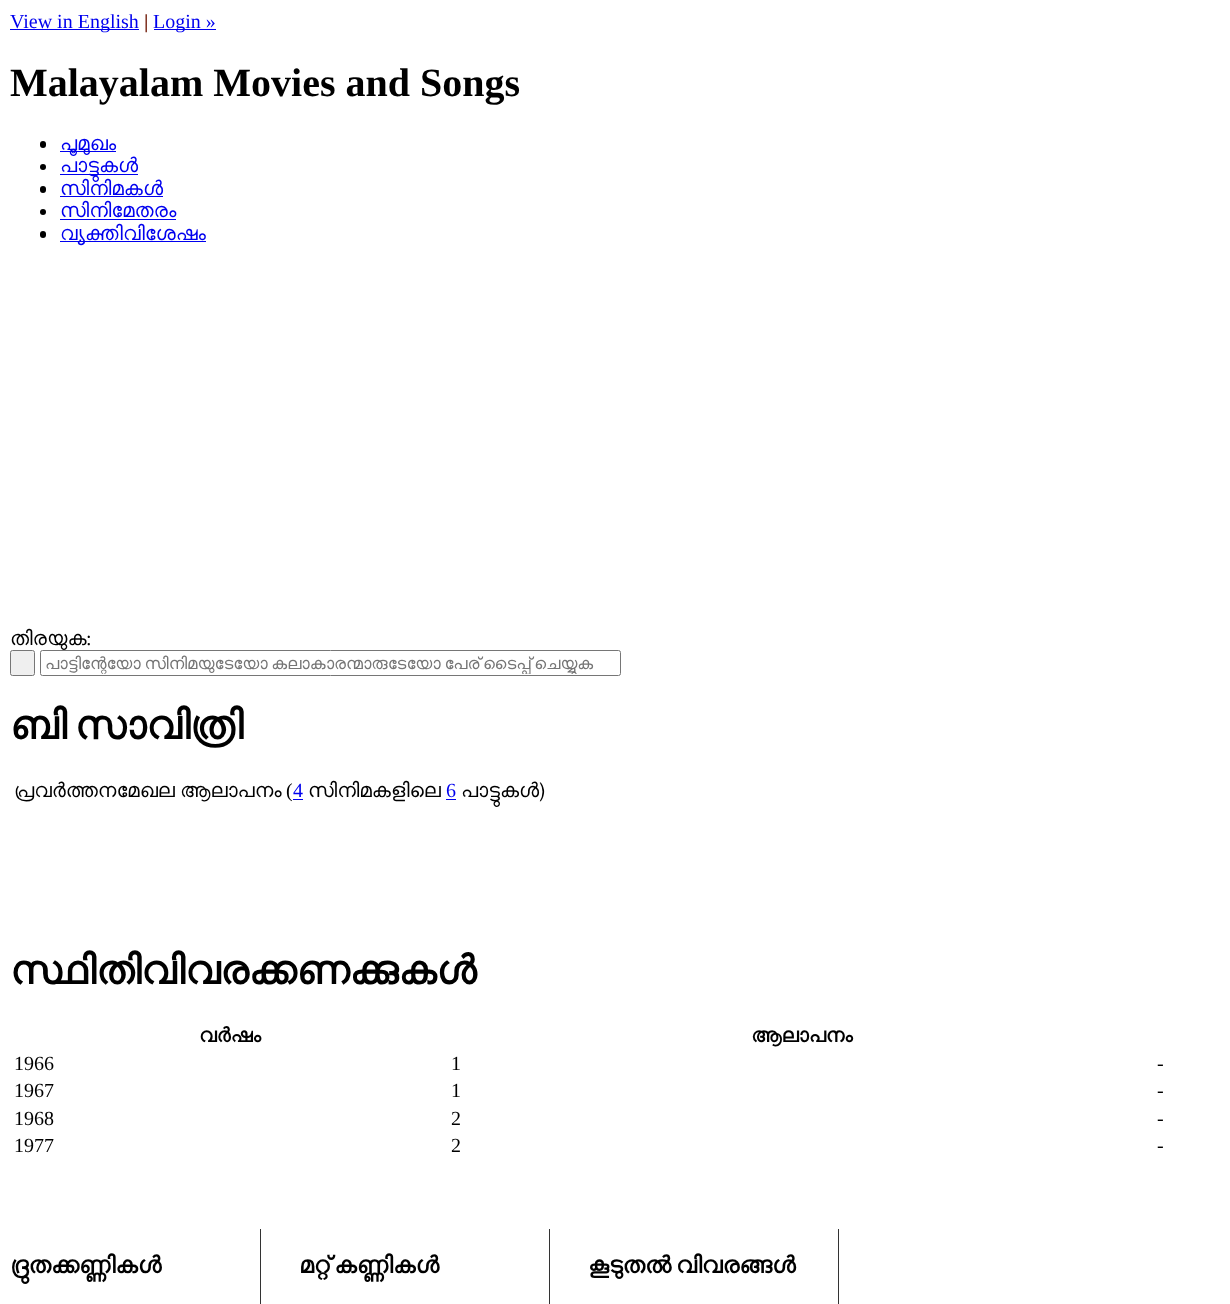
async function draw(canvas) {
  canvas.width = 1230
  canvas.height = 1304
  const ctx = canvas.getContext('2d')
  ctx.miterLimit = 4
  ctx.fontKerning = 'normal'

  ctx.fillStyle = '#fff'
  ctx.fillRect(0, 0, 1230, 1304)
  ctx.fillStyle = '#00e'
  ctx.fillRect(10, 29, 129, 1)
  ctx.font = '20px Liberation Serif'
  ctx.fillText('View in English', 10, 28)
  ctx.font = 'bold 20px Liberation Serif'
  ctx.fillStyle = '#762311'
  ctx.fillText('|', 144, 28)
  ctx.fillStyle = '#00e'
  ctx.fillRect(154, 29, 62, 1)
  ctx.font = '20px Liberation Serif'
  ctx.fillText('Login »', 153, 28)
  ctx.font = 'bold 40px Liberation Serif'
  ctx.fillStyle = '#000'
  ctx.fillText('Malayalam Movies and Songs', 10, 96)
  ctx.beginPath()
  ctx.roundRect(40, 141, 6, 7, 3)
  ctx.fill()
  ctx.fillStyle = '#00e'
  ctx.fillRect(60, 151, 56, 1)
  ctx.font = '20px FreeSans'
  ctx.fillText('പൂമുഖം', 60, 150)
  ctx.fillStyle = '#000'
  ctx.beginPath()
  ctx.arc(43, 167, 3, 0, 2 * Math.PI)
  ctx.fill()
  ctx.fillStyle = '#00e'
  ctx.fillRect(60, 174, 78, 1)
  ctx.fillText('പാട്ടുകള്‍', 60, 172)
  ctx.fillStyle = '#000'
  ctx.beginPath()
  ctx.roundRect(40, 186, 6, 7, 3)
  ctx.fill()
  ctx.fillStyle = '#00e'
  ctx.fillText('സിനിമകള്‍', 60, 195)
  ctx.fillRect(60, 196, 103, 1)
  ctx.fillStyle = '#000'
  ctx.beginPath()
  ctx.arc(43, 212, 3, 0, 2 * Math.PI)
  ctx.fill()
  ctx.fillStyle = '#00e'
  ctx.fillText('സിനിമേതരം', 60, 217)
  ctx.fillRect(60, 219, 116, 1)
  ctx.fillStyle = '#000'
  ctx.beginPath()
  ctx.roundRect(40, 231, 6, 7, 3)
  ctx.fill()
  ctx.fillStyle = '#00e'
  ctx.fillRect(60, 241, 146, 1)
  ctx.fillText('വ്യക്തിവിശേഷം', 60, 240)
  ctx.fillStyle = '#000'
  ctx.fillText('തിരയുക', 10, 645)
  ctx.font = '20px Liberation Serif'
  ctx.fillText(':', 86, 645)
  ctx.fillStyle = '#efefef'
  ctx.beginPath()
  ctx.roundRect(10.5, 650.5, 24, 25, 2)
  ctx.fill()
  ctx.strokeStyle = '#767676'
  ctx.stroke()
  ctx.fillStyle = '#fff'
  ctx.beginPath()
  ctx.roundRect(40.5, 650.5, 580, 25, 2)
  ctx.fill()
  ctx.stroke()
  ctx.save()
  ctx.beginPath()
  ctx.rect(45, 654, 555, 20)
  ctx.clip()
  ctx.wordSpacing = '-0.5px'
  ctx.font = '16.65px FreeSans'
  ctx.fillStyle = '#757575'
  ctx.fillText('പാട്ടിന്റേയോ സിനിമയുടേയോ കലാകാരന്മാരുടേയോ പേര് ടൈപ്പ് ചെയ്യുക', 45, 669)
  ctx.restore()
  ctx.wordSpacing = '-2px'
  ctx.font = 'bold 40px FreeSans'
  ctx.fillStyle = '#000'
  ctx.fillText('ബി സാവിത്രി', 10, 739)
  ctx.wordSpacing = '0px'
  ctx.font = '20px FreeSans'
  ctx.fillText('പ്രവര്‍ത്തനമേഖല ആലാപനം', 14, 797)
  ctx.font = '20px Liberation Serif'
  ctx.fillText('(', 286, 797)
  ctx.fillStyle = '#00e'
  ctx.fillText('4', 293, 797)
  ctx.fillRect(293, 799, 10, 1)
  ctx.font = '20px FreeSans'
  ctx.fillStyle = '#000'
  ctx.fillText('സിനിമകളിലെ', 308, 797)
  ctx.font = '20px Liberation Serif'
  ctx.fillStyle = '#00e'
  ctx.fillText('6', 446, 797)
  ctx.fillRect(446, 799, 10, 1)
  ctx.font = '20px FreeSans'
  ctx.fillStyle = '#000'
  ctx.fillText('പാട്ടുകള്‍)', 461, 797)
  ctx.font = 'bold 40px FreeSans'
  ctx.fillText('സ്ഥിതിവിവരക്കണക്കുകള്‍', 10, 984)
  ctx.font = 'bold 20px FreeSans'
  ctx.fillText('വര്‍ഷം', 199, 1042)
  ctx.fillText('ആലാപനം', 751, 1042)
  ctx.font = '20px Liberation Serif'
  ctx.fillText('1966', 14, 1070)
  ctx.fillText('1', 451, 1070)
  ctx.fillText('-', 1157, 1070)
  ctx.fillText('1967', 14, 1097)
  ctx.fillText('1', 451, 1097)
  ctx.fillText('-', 1157, 1097)
  ctx.fillText('1968', 14, 1125)
  ctx.fillText('2', 451, 1125)
  ctx.fillText('-', 1157, 1125)
  ctx.fillText('1977', 14, 1152)
  ctx.fillText('2', 451, 1152)
  ctx.fillText('-', 1157, 1152)
  ctx.fillStyle = '#333'
  ctx.fillRect(260, 1229, 1, 75)
  ctx.font = 'bold 23.5px FreeSans'
  ctx.fillStyle = '#000'
  ctx.fillText('ദ്രുതക്കണ്ണികള്‍', 10, 1273)
  ctx.fillStyle = '#333'
  ctx.fillRect(549, 1229, 1, 75)
  ctx.wordSpacing = '-1px'
  ctx.fillStyle = '#000'
  ctx.fillText('മറ്റ് കണ്ണികള്‍', 299, 1273)
  ctx.fillStyle = '#333'
  ctx.fillRect(838, 1229, 1, 75)
  ctx.fillStyle = '#000'
  ctx.fillText('കൂടുതല്‍ വിവരങ്ങള്‍', 588, 1273)
}

draw(document.querySelector('canvas'))
